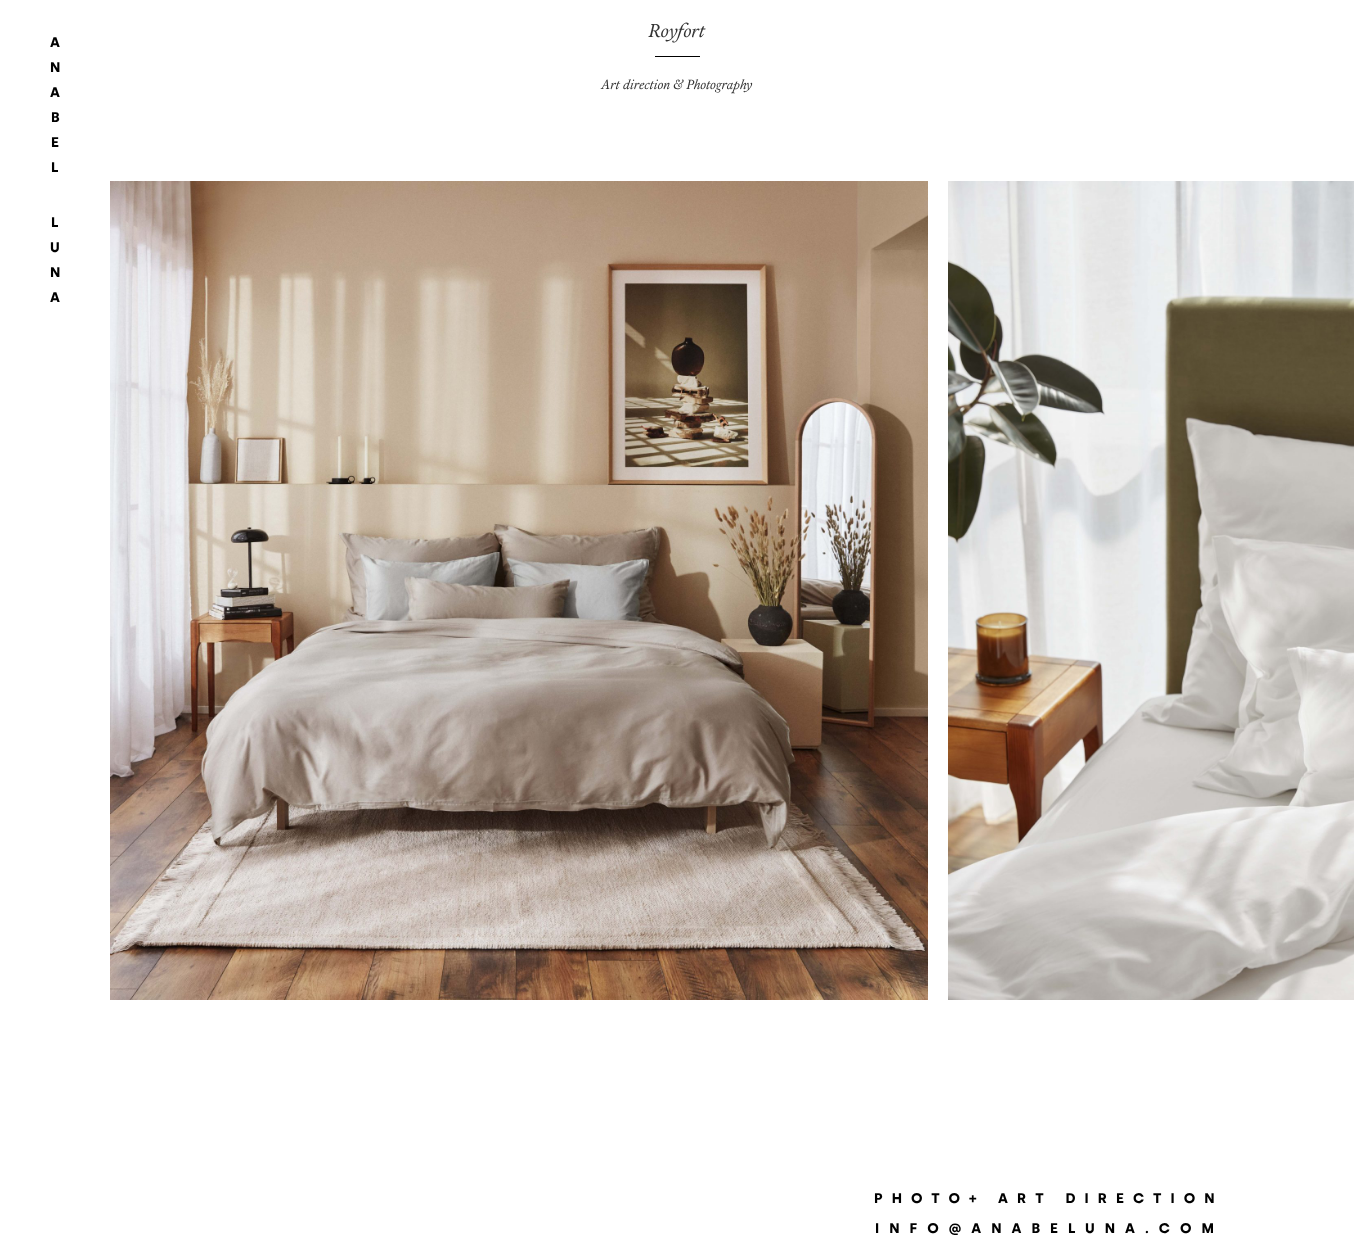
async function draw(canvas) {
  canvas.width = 1354
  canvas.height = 1259
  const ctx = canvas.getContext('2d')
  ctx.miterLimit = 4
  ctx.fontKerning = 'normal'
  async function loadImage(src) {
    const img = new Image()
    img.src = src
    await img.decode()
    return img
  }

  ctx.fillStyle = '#fff'
  ctx.fillRect(0, 0, 1354, 1259)
  ctx.font = 'italic 18.5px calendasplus'
  ctx.fillStyle = '#333'
  ctx.fillText('Royfort', 648, 37)
  ctx.fillStyle = '#000'
  ctx.fillRect(655, 56, 45, 1)
  ctx.font = 'italic 13.25px calendasplus'
  ctx.fillStyle = '#333'
  ctx.fillText('Art direction & Photography', 601, 89)
  ctx.drawImage(await loadImage('image0.png'), 110, 181, 818, 819)
  ctx.drawImage(await loadImage('image1.png'), 948, 181, 406, 819)
  ctx.font = 'bold 14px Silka'
  ctx.fillStyle = '#000'
  ctx.fillText('A', 50, 47)
  ctx.fillText('N', 50, 72)
  ctx.fillText('A', 50, 97)
  ctx.fillText('B', 51, 122)
  ctx.fillText('E', 51, 147)
  ctx.fillText('L', 51, 172)
  ctx.fillText('L', 51, 227)
  ctx.fillText('U', 50, 252)
  ctx.fillText('N', 50, 277)
  ctx.fillText('A', 50, 302)
  ctx.letterSpacing = '9.1px'
  ctx.fillText('PHOTO+ ART DIRECTION', 874, 1203)
  ctx.letterSpacing = '10px'
  ctx.fillText('INFO@ANABELUNA.COM', 875, 1233)
}

draw(document.querySelector('canvas'))
